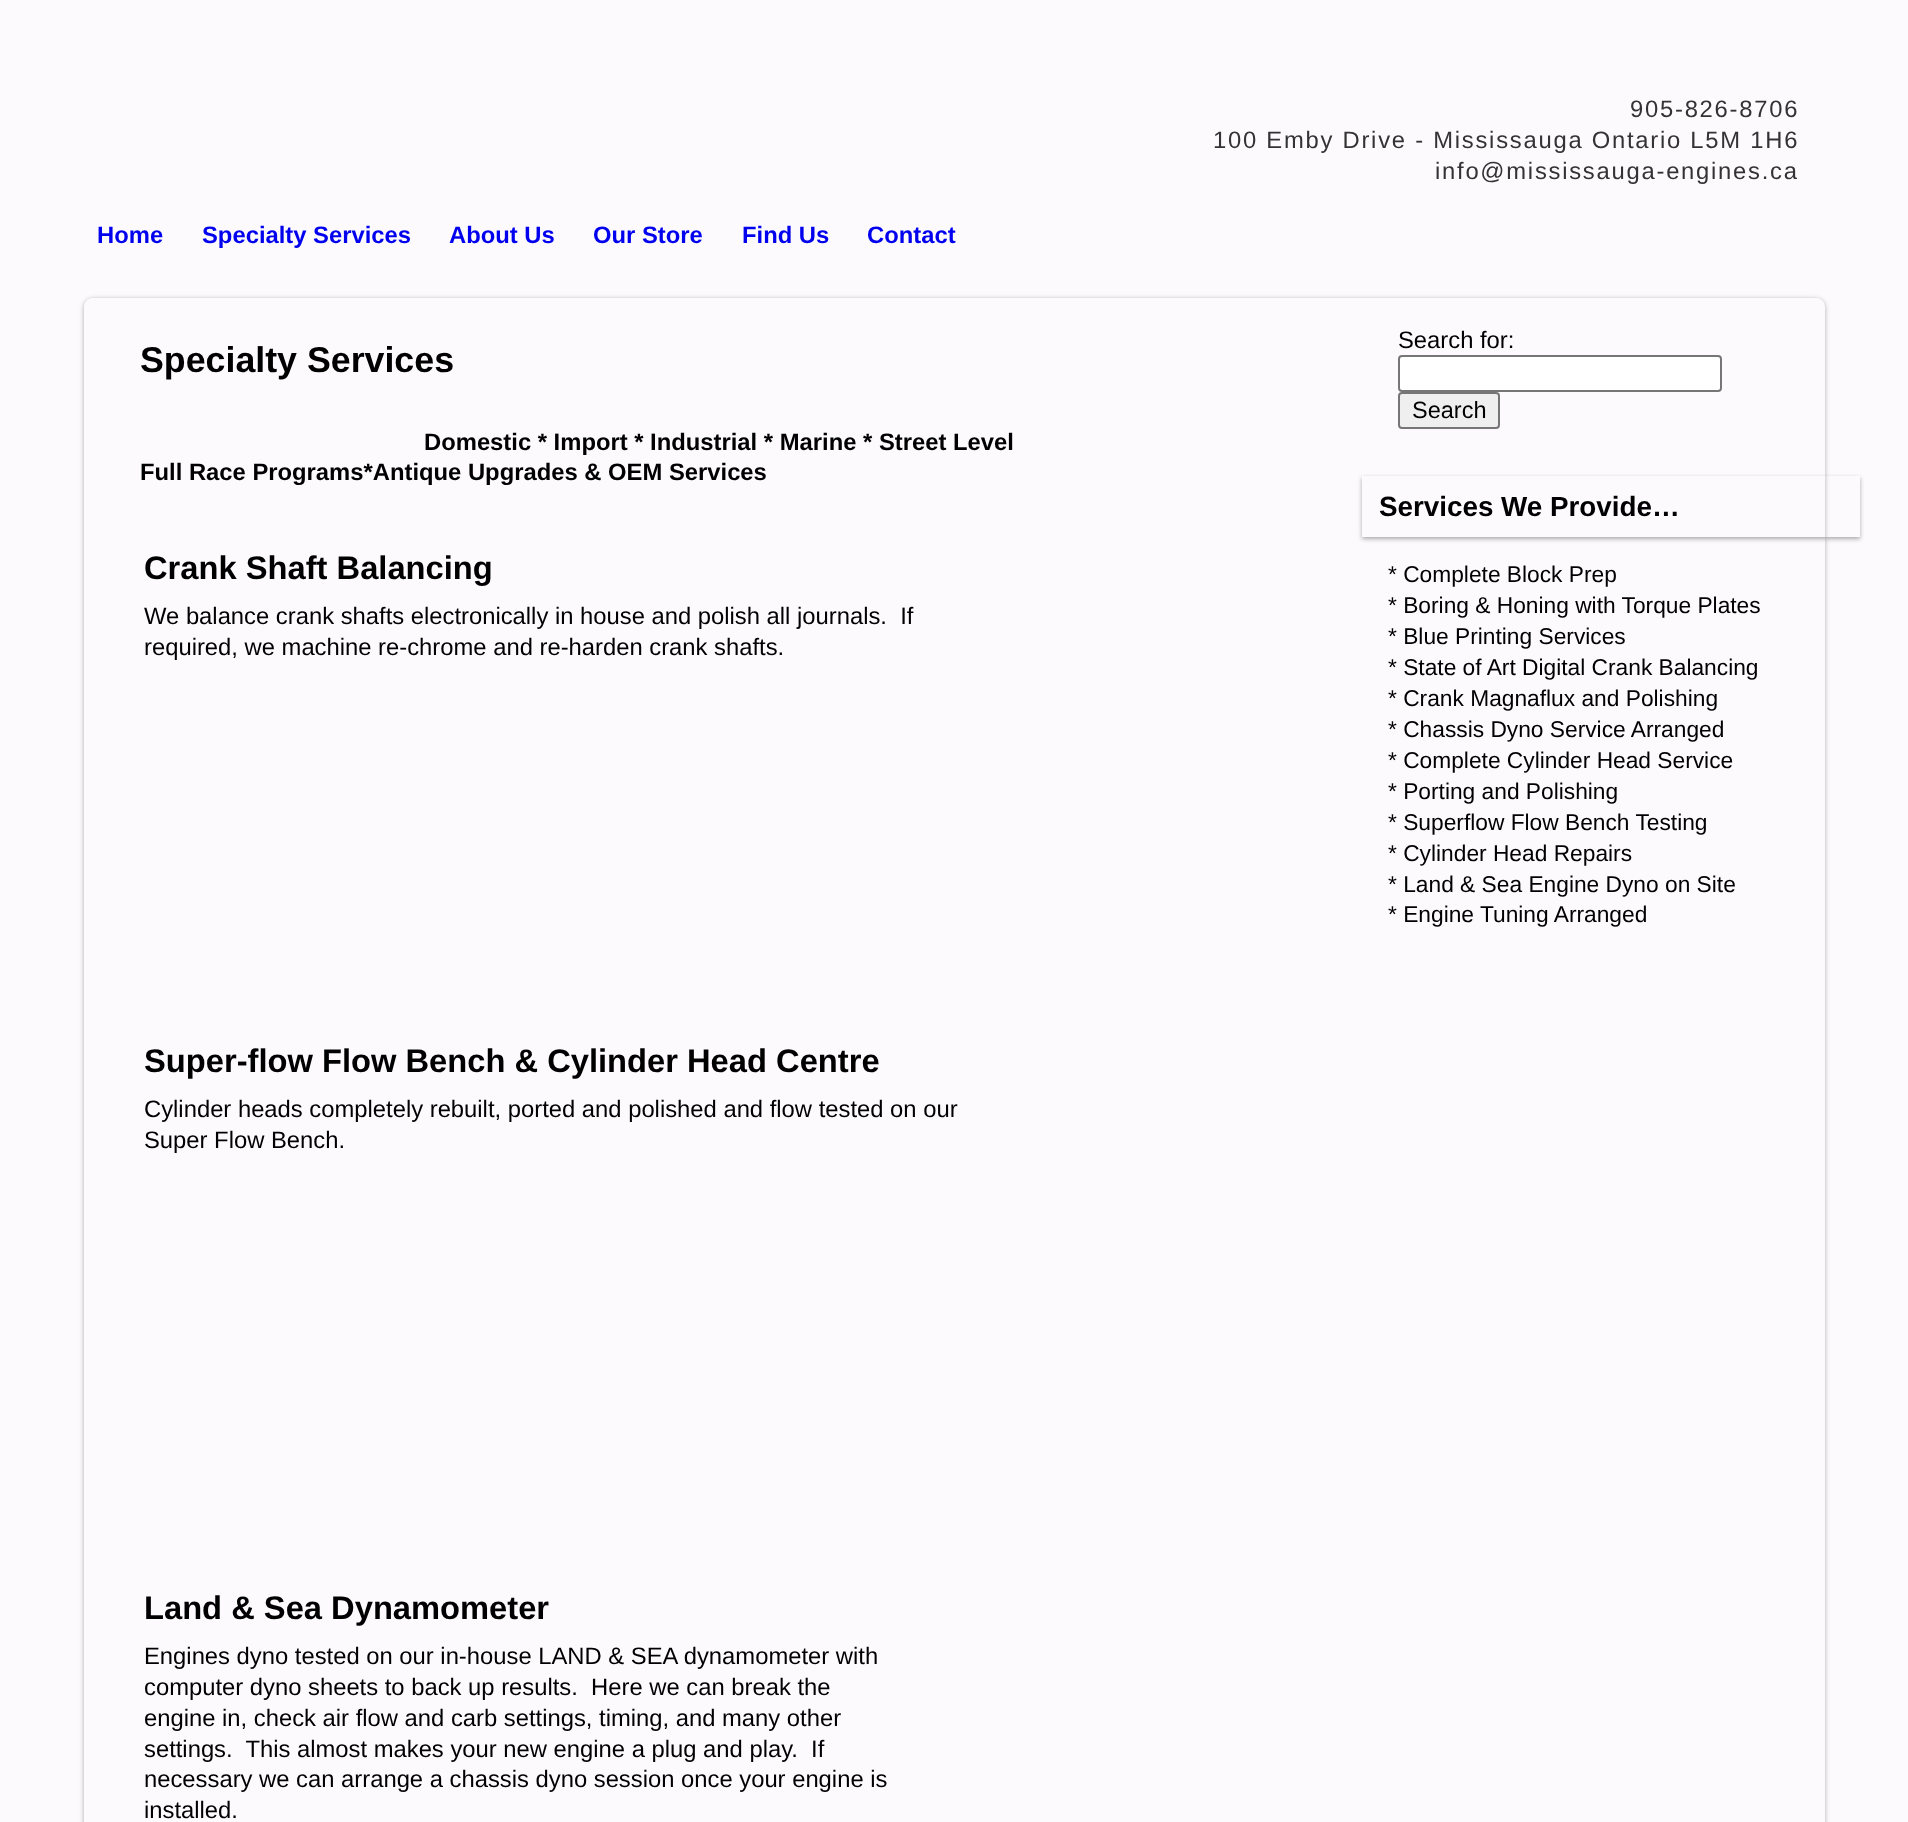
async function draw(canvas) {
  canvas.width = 1908
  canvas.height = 1822
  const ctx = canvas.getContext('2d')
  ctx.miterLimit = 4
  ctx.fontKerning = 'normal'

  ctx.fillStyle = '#fcfafd'
  ctx.fillRect(0, 0, 1908, 1822)
  ctx.letterSpacing = '1.75px'
  ctx.font = '23.8px Liberation Sans'
  ctx.fillStyle = '#333'
  ctx.fillText('905-826-8706', 1630, 117)
  ctx.fillText('100 Emby Drive - Mississauga Ontario L5M 1H6', 1213, 148)
  ctx.fillText('info@mississauga-engines.ca', 1435, 179)
  ctx.letterSpacing = '0px'
  ctx.font = 'bold 23.8px Liberation Sans'
  ctx.fillStyle = '#00e'
  ctx.fillText('Home', 97, 243)
  ctx.fillText('Specialty Services', 202, 243)
  ctx.fillText('About Us', 449, 243)
  ctx.fillText('Our Store', 593, 243)
  ctx.fillText('Find Us', 742, 243)
  ctx.fillText('Contact', 867, 243)
  ctx.save()
  ctx.beginPath()
  ctx.moveTo(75, 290)
  ctx.lineTo(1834, 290)
  ctx.lineTo(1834, 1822)
  ctx.lineTo(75, 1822)
  ctx.closePath()
  ctx.moveTo(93, 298)
  ctx.lineTo(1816, 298)
  ctx.bezierCurveTo(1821, 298, 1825, 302, 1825, 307)
  ctx.lineTo(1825, 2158)
  ctx.bezierCurveTo(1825, 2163, 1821, 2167, 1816, 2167)
  ctx.lineTo(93, 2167)
  ctx.bezierCurveTo(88, 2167, 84, 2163, 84, 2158)
  ctx.lineTo(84, 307)
  ctx.bezierCurveTo(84, 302, 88, 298, 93, 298)
  ctx.closePath()
  ctx.clip('evenodd')
  ctx.fillStyle = '#0000004d'
  ctx.filter = 'blur(2.5px)'
  ctx.beginPath()
  ctx.roundRect(84, 299, 1741, 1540, 9)
  ctx.fill()
  ctx.filter = 'none'
  ctx.restore()
  ctx.font = 'bold 35.75px Liberation Sans'
  ctx.fillStyle = '#000'
  ctx.fillText('Specialty Services', 140, 372)
  ctx.font = 'bold 23.8px Liberation Sans'
  ctx.fillText('Domestic * Import * Industrial * Marine * Street Level', 424, 450)
  ctx.fillText('Full Race Programs*Antique Upgrades & OEM Services', 140, 480)
  ctx.font = 'bold 32.7px Liberation Sans'
  ctx.fillText('Crank Shaft Balancing', 144, 579)
  ctx.font = '23.8px Liberation Sans'
  ctx.fillText('We balance crank shafts electronically in house and polish all journals.  If', 144, 624)
  ctx.fillText('required, we machine re-chrome and re-harden crank shafts.', 144, 655)
  ctx.font = 'bold 32.7px Liberation Sans'
  ctx.fillText('Super-flow Flow Bench & Cylinder Head Centre', 144, 1072)
  ctx.font = '23.8px Liberation Sans'
  ctx.fillText('Cylinder heads completely rebuilt, ported and polished and flow tested on our', 144, 1117)
  ctx.fillText('Super Flow Bench.', 144, 1148)
  ctx.font = 'bold 32.7px Liberation Sans'
  ctx.fillText('Land & Sea Dynamometer', 144, 1619)
  ctx.font = '23.8px Liberation Sans'
  ctx.fillText('Engines dyno tested on our in-house LAND & SEA dynamometer with', 144, 1664)
  ctx.fillText('computer dyno sheets to back up results.  Here we can break the', 144, 1695)
  ctx.fillText('engine in, check air flow and carb settings, timing, and many other', 144, 1726)
  ctx.fillText('settings.  This almost makes your new engine a plug and play.  If', 144, 1757)
  ctx.fillText('necessary we can arrange a chassis dyno session once your engine is', 144, 1787)
  ctx.fillText('installed.', 144, 1818)
  ctx.fillText('Search for:', 1398, 348)
  ctx.fillStyle = '#fff'
  ctx.beginPath()
  ctx.roundRect(1399, 356, 322, 35, 3)
  ctx.fill()
  ctx.strokeStyle = '#767676'
  ctx.lineWidth = 2
  ctx.stroke()
  ctx.fillStyle = '#efefef'
  ctx.beginPath()
  ctx.roundRect(1399, 393, 100, 35, 3)
  ctx.fill()
  ctx.stroke()
  ctx.font = '23.5px Liberation Sans'
  ctx.fillStyle = '#000'
  ctx.fillText('Search', 1412, 418)
  ctx.save()
  ctx.beginPath()
  ctx.moveTo(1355, 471)
  ctx.lineTo(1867, 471)
  ctx.lineTo(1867, 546)
  ctx.lineTo(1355, 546)
  ctx.closePath()
  ctx.moveTo(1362, 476)
  ctx.lineTo(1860, 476)
  ctx.lineTo(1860, 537)
  ctx.lineTo(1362, 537)
  ctx.closePath()
  ctx.clip('evenodd')
  ctx.fillStyle = '#aaa'
  ctx.filter = 'blur(2px)'
  ctx.beginPath()
  ctx.rect(1362, 478, 498, 61)
  ctx.fill()
  ctx.filter = 'none'
  ctx.restore()
  ctx.font = 'bold 27.8px Liberation Sans'
  ctx.fillText('Services We Provide…', 1379, 516)
  ctx.font = '22.75px Liberation Sans'
  ctx.fillText('* Complete Block Prep', 1388, 582)
  ctx.fillText('* Boring & Honing with Torque Plates', 1388, 613)
  ctx.fillText('* Blue Printing Services', 1388, 644)
  ctx.fillText('* State of Art Digital Crank Balancing', 1388, 675)
  ctx.fillText('* Crank Magnaflux and Polishing', 1388, 706)
  ctx.fillText('* Chassis Dyno Service Arranged', 1388, 737)
  ctx.fillText('* Complete Cylinder Head Service', 1388, 768)
  ctx.fillText('* Porting and Polishing', 1388, 799)
  ctx.fillText('* Superflow Flow Bench Testing', 1388, 830)
  ctx.fillText('* Cylinder Head Repairs', 1388, 861)
  ctx.fillText('* Land & Sea Engine Dyno on Site', 1388, 892)
  ctx.fillText('* Engine Tuning Arranged', 1388, 922)
}

draw(document.querySelector('canvas'))
